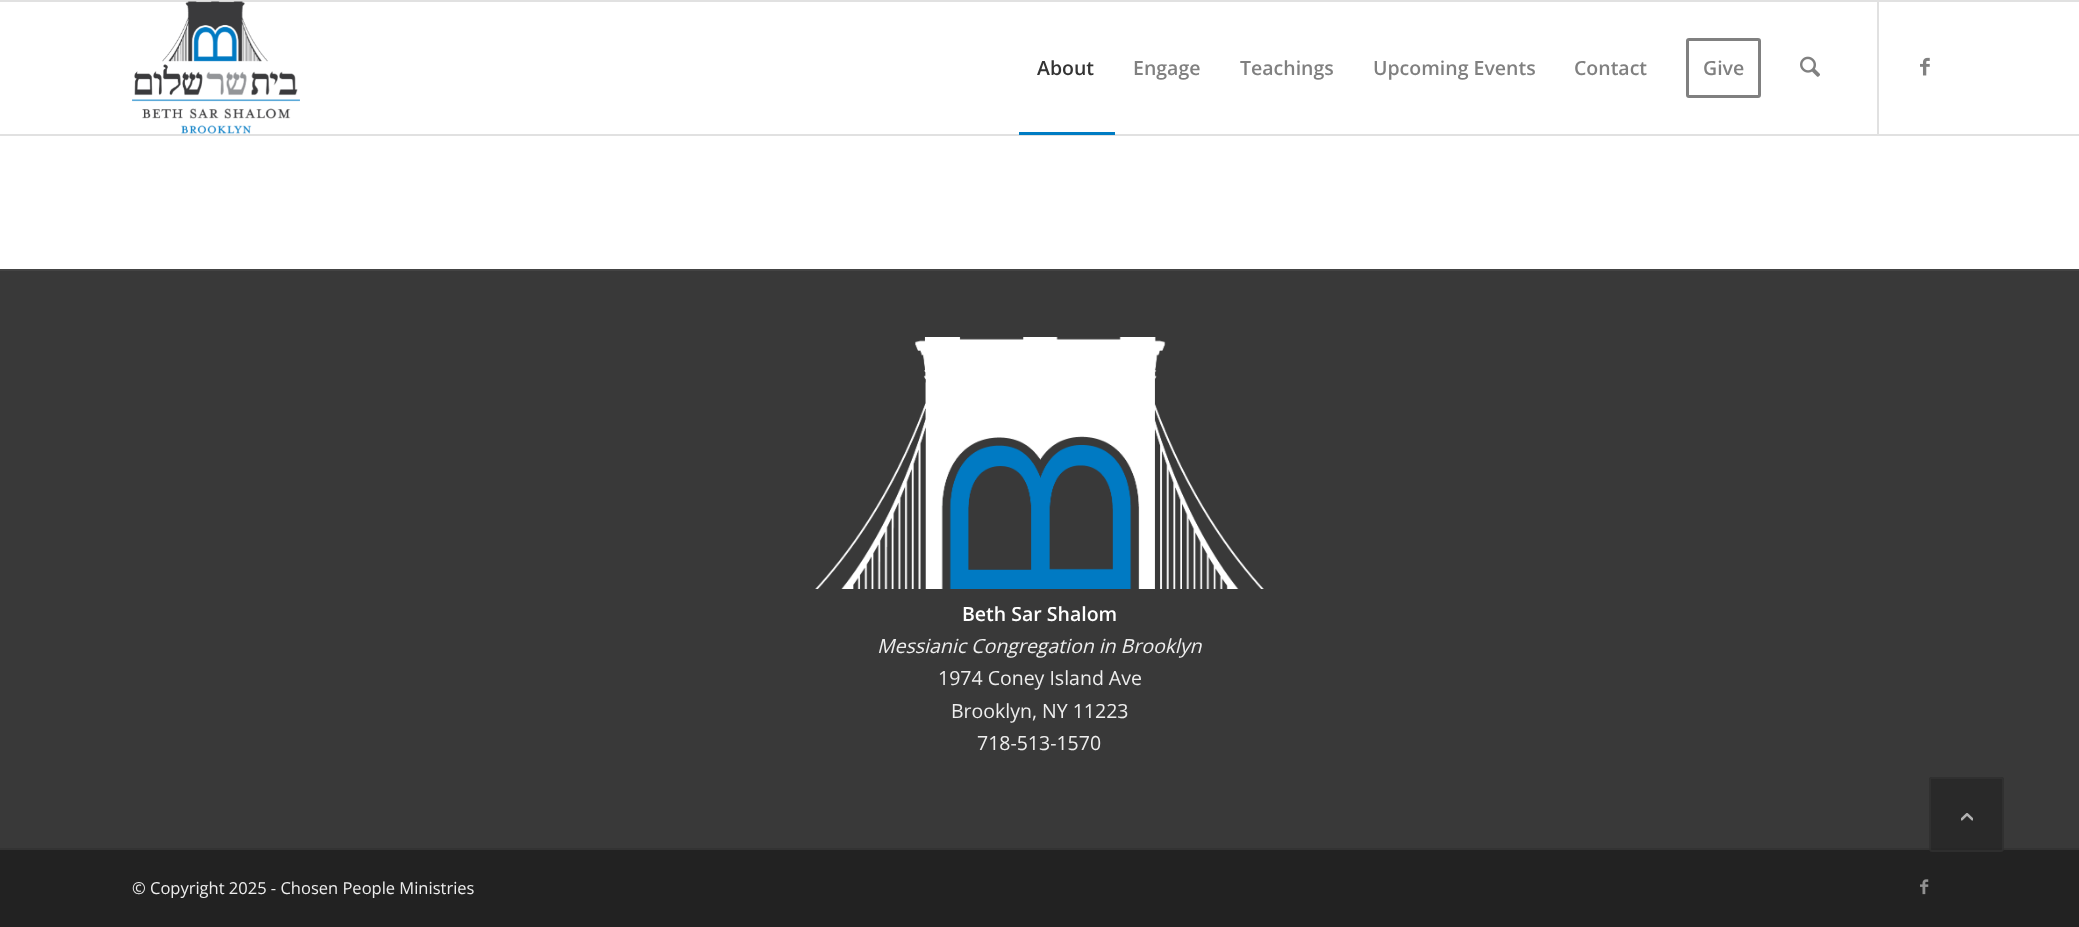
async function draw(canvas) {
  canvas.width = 2079
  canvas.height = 927
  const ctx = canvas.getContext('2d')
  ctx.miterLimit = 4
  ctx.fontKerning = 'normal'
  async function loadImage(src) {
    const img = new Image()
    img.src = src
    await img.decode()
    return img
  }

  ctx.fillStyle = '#fff'
  ctx.fillRect(0, 0, 2079, 927)
  ctx.fillStyle = '#e1e1e1'
  ctx.fillRect(0, 0, 2079, 2)
  ctx.fillRect(0, 134, 2079, 2)
  ctx.drawImage(await loadImage('image0.png'), 132, 1, 168, 133)
  ctx.fillRect(1877, 2, 2, 132)
  ctx.font = '600 19.5px Open Sans'
  ctx.fillStyle = '#333'
  ctx.fillText('About', 1037, 75)
  ctx.fillStyle = '#007cc3'
  ctx.fillRect(1019, 132, 96, 3)
  ctx.fillStyle = '#808080'
  ctx.fillText('Engage', 1133, 75)
  ctx.fillText('Teachings', 1240, 75)
  ctx.fillText('Upcoming Events', 1373, 75)
  ctx.fillText('Contact', 1574, 75)
  ctx.beginPath()
  ctx.roundRect(1687.5, 39.5, 72, 57, 1.5)
  ctx.strokeStyle = '#808080'
  ctx.lineWidth = 3
  ctx.stroke()
  ctx.fillText('Give', 1703, 75)
  ctx.drawImage(await loadImage('image1.png'), 1800, 56, 20, 21)
  ctx.drawImage(await loadImage('image2.png'), 1920, 57, 10, 19)
  ctx.fillStyle = '#393939'
  ctx.fillRect(0, 271, 2079, 577)
  ctx.fillStyle = '#444'
  ctx.fillRect(0, 269, 2079, 2)
  ctx.drawImage(await loadImage('image3.png'), 815, 337, 449, 252)
  ctx.fillStyle = '#fff'
  ctx.fillText('Beth Sar Shalom', 962, 621)
  ctx.font = 'italic 19.5px Open Sans'
  ctx.fillStyle = '#eee'
  ctx.fillText('Messianic Congregation in Brooklyn', 877, 653)
  ctx.font = '19.5px Open Sans'
  ctx.fillText('1974 Coney Island Ave', 938, 685)
  ctx.fillText('Brooklyn, NY 11223', 951, 718)
  ctx.fillText('718-513-1570', 977, 750)
  ctx.fillStyle = '#222'
  ctx.fillRect(0, 850, 2079, 77)
  ctx.fillStyle = '#333'
  ctx.fillRect(0, 848, 2079, 2)
  ctx.font = '16.5px Open Sans'
  ctx.fillStyle = '#eee'
  ctx.fillText('© Copyright 2025 - Chosen People Ministries', 132, 894)
  ctx.drawImage(await loadImage('image4.png'), 1920, 879, 9, 16)
  ctx.fillStyle = '#222222b3'
  ctx.beginPath()
  ctx.roundRect(1929, 777, 75, 75, 3)
  ctx.fill()
  ctx.beginPath()
  ctx.roundRect(1930, 778, 73, 73, 2)
  ctx.strokeStyle = '#333333b3'
  ctx.lineWidth = 2
  ctx.stroke()
  ctx.drawImage(await loadImage('image5.png'), 1961, 813, 12, 8)
}

draw(document.querySelector('canvas'))
